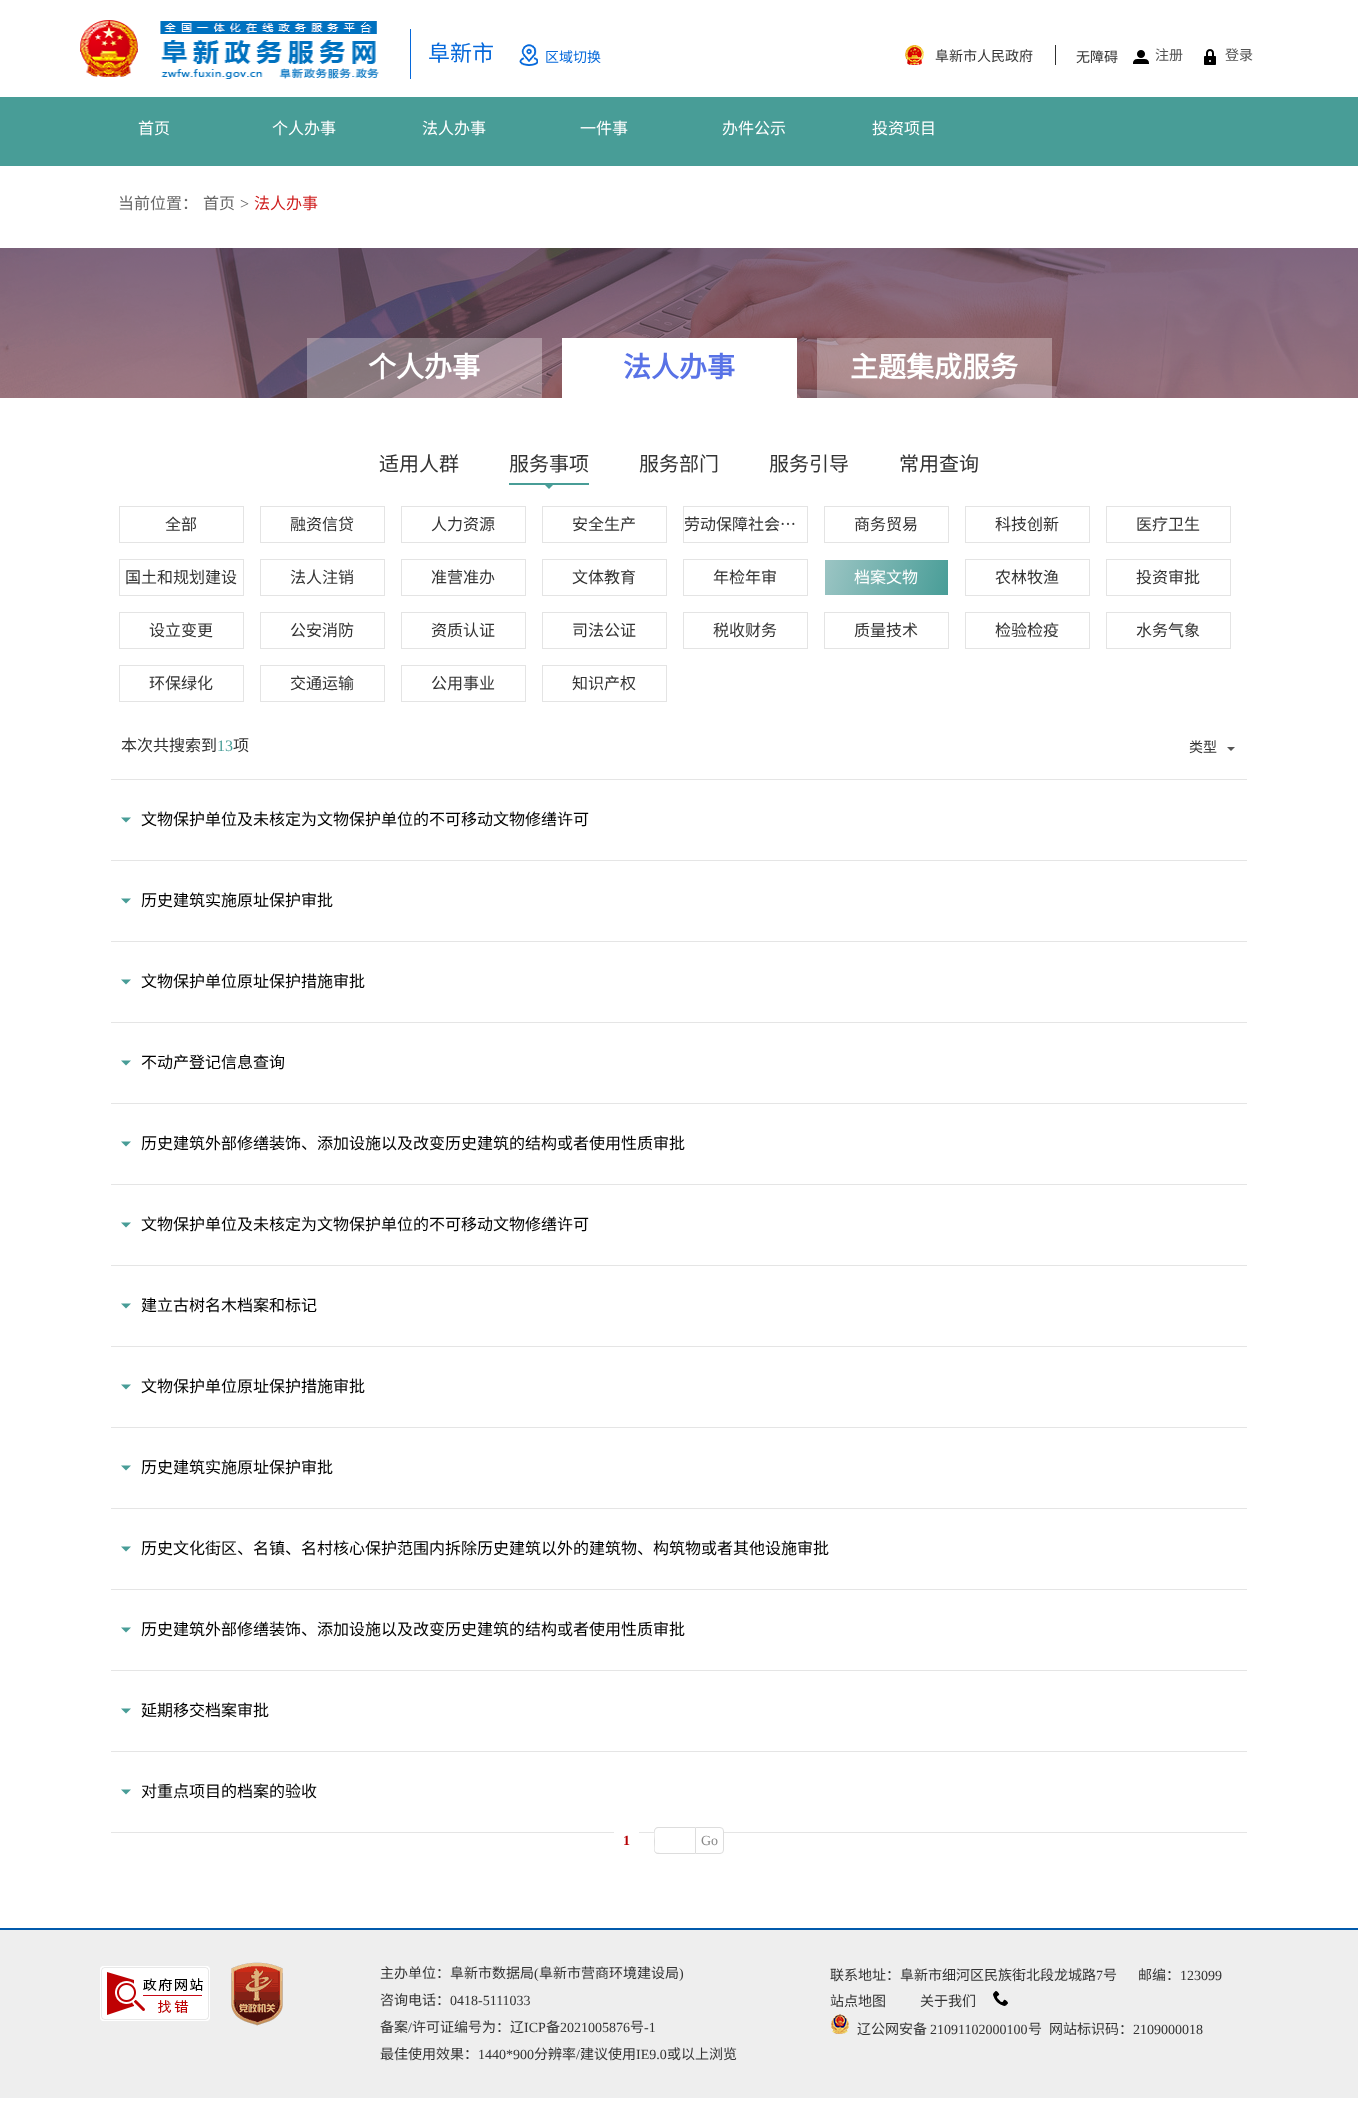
async function draw(canvas) {
  canvas.width = 1358
  canvas.height = 2116
  const ctx = canvas.getContext('2d')
  ctx.miterLimit = 4
  ctx.fontKerning = 'normal'
  async function loadImage(src) {
    const img = new Image()
    img.src = src
    await img.decode()
    return img
  }
  let gradient

  ctx.fillStyle = '#fff'
  ctx.fillRect(0, 0, 1358, 2116)
  ctx.drawImage(await loadImage('image0.png'), 80, 20, 299, 59)
  ctx.fillStyle = '#0669db'
  ctx.fillRect(410, 29, 1, 50)
  ctx.font = '22px Noto Sans CJK SC'
  ctx.fillText('阜新市', 428, 61)
  ctx.drawImage(await loadImage('image1.png'), 519, 44, 19, 22)
  ctx.font = '14px Noto Sans CJK SC'
  ctx.fillText('区域切换', 545, 62)
  ctx.drawImage(await loadImage('image2.png'), 905, 45, 19, 20)
  ctx.fillStyle = '#303030'
  ctx.fillRect(1055, 45, 1, 20)
  ctx.fillStyle = '#333'
  ctx.fillText('阜新市人民政府', 935, 61)
  ctx.fillText('无障碍', 1076, 62)
  ctx.drawImage(await loadImage('image3.png'), 1133, 50, 16, 14)
  ctx.fillStyle = '#535353'
  ctx.fillText('注册', 1155, 60)
  ctx.drawImage(await loadImage('image4.png'), 1204, 49, 12, 16)
  ctx.fillText('登录', 1225, 60)
  ctx.fillStyle = '#489d97'
  ctx.fillRect(0, 97, 1358, 69)
  ctx.font = '16px Noto Sans CJK SC'
  ctx.fillStyle = '#fff'
  ctx.fillText('首页', 138, 134)
  ctx.fillText('个人办事', 272, 134)
  ctx.fillText('法人办事', 422, 134)
  ctx.fillText('一件事', 580, 134)
  ctx.fillText('办件公示', 722, 134)
  ctx.fillText('投资项目', 872, 134)
  ctx.fillStyle = '#666'
  ctx.fillText('当前位置：', 118, 209)
  ctx.fillText('首页', 203, 209)
  ctx.font = '16px Liberation Serif'
  ctx.fillText('>', 240, 209)
  ctx.font = '16px Noto Sans CJK SC'
  ctx.fillStyle = '#cf1f1f'
  ctx.fillText('法人办事', 254, 209)
  ctx.drawImage(await loadImage('image5.png'), 0, 248, 1358, 150)
  ctx.fillStyle = '#ffffff4d'
  ctx.fillRect(307, 338, 235, 60)
  ctx.font = 'bold 28px Noto Sans CJK SC'
  ctx.fillStyle = '#fff'
  ctx.fillText('个人办事', 368, 377)
  ctx.fillRect(562, 338, 235, 60)
  ctx.fillStyle = '#5872e6'
  ctx.fillText('法人办事', 623, 377)
  ctx.fillStyle = '#ffffff4d'
  ctx.fillRect(817, 338, 235, 60)
  ctx.fillStyle = '#fff'
  ctx.fillText('主题集成服务', 850, 377)
  ctx.font = '20px Noto Sans CJK SC'
  ctx.fillStyle = '#333'
  ctx.fillText('适用人群', 379, 471)
  ctx.fillText('服务事项', 509, 471)
  ctx.fillStyle = '#489d97'
  ctx.fillRect(509, 483, 80, 2)
  ctx.beginPath()
  ctx.moveTo(545, 485)
  ctx.lineTo(553, 485)
  ctx.lineTo(549, 489)
  ctx.closePath()
  ctx.fill()
  ctx.fillStyle = '#333'
  ctx.fillText('服务部门', 639, 471)
  ctx.fillText('服务引导', 769, 471)
  ctx.fillText('常用查询', 899, 471)
  ctx.strokeStyle = '#e4e4e4'
  ctx.strokeRect(119.5, 506.5, 124, 36)
  ctx.font = '16px Noto Sans CJK SC'
  ctx.fillText('全部', 165, 530)
  ctx.strokeRect(260.5, 506.5, 124, 36)
  ctx.fillText('融资信贷', 290, 530)
  ctx.strokeRect(401.5, 506.5, 124, 36)
  ctx.fillText('人力资源', 431, 530)
  ctx.strokeRect(542.5, 506.5, 124, 36)
  ctx.fillText('安全生产', 572, 530)
  ctx.strokeRect(683.5, 506.5, 124, 36)
  ctx.fillText('劳动保障社会…', 684, 530)
  ctx.strokeRect(824.5, 506.5, 124, 36)
  ctx.fillText('商务贸易', 854, 530)
  ctx.strokeRect(965.5, 506.5, 124, 36)
  ctx.fillText('科技创新', 995, 530)
  ctx.strokeRect(1106.5, 506.5, 124, 36)
  ctx.fillText('医疗卫生', 1136, 530)
  ctx.strokeRect(119.5, 559.5, 124, 36)
  ctx.fillText('国土和规划建设', 125, 583)
  ctx.strokeRect(260.5, 559.5, 124, 36)
  ctx.fillText('法人注销', 290, 583)
  ctx.strokeRect(401.5, 559.5, 124, 36)
  ctx.fillText('准营准办', 431, 583)
  ctx.strokeRect(542.5, 559.5, 124, 36)
  ctx.fillText('文体教育', 572, 583)
  ctx.strokeRect(683.5, 559.5, 124, 36)
  ctx.fillText('年检年审', 713, 583)
  gradient = ctx.createLinearGradient(948, 596, 825, 559)
  gradient.addColorStop(0, '#489d97')
  gradient.addColorStop(1, '#9cc5c4')
  ctx.fillStyle = gradient
  ctx.fillRect(825, 560, 123, 35)
  ctx.fillStyle = '#fff'
  ctx.fillText('档案文物', 854, 583)
  ctx.strokeRect(965.5, 559.5, 124, 36)
  ctx.fillStyle = '#333'
  ctx.fillText('农林牧渔', 995, 583)
  ctx.strokeRect(1106.5, 559.5, 124, 36)
  ctx.fillText('投资审批', 1136, 583)
  ctx.strokeRect(119.5, 612.5, 124, 36)
  ctx.fillText('设立变更', 149, 636)
  ctx.strokeRect(260.5, 612.5, 124, 36)
  ctx.fillText('公安消防', 290, 636)
  ctx.strokeRect(401.5, 612.5, 124, 36)
  ctx.fillText('资质认证', 431, 636)
  ctx.strokeRect(542.5, 612.5, 124, 36)
  ctx.fillText('司法公证', 572, 636)
  ctx.strokeRect(683.5, 612.5, 124, 36)
  ctx.fillText('税收财务', 713, 636)
  ctx.strokeRect(824.5, 612.5, 124, 36)
  ctx.fillText('质量技术', 854, 636)
  ctx.strokeRect(965.5, 612.5, 124, 36)
  ctx.fillText('检验检疫', 995, 636)
  ctx.strokeRect(1106.5, 612.5, 124, 36)
  ctx.fillText('水务气象', 1136, 636)
  ctx.strokeRect(119.5, 665.5, 124, 36)
  ctx.fillText('环保绿化', 149, 689)
  ctx.strokeRect(260.5, 665.5, 124, 36)
  ctx.fillText('交通运输', 290, 689)
  ctx.strokeRect(401.5, 665.5, 124, 36)
  ctx.fillText('公用事业', 431, 689)
  ctx.strokeRect(542.5, 665.5, 124, 36)
  ctx.fillText('知识产权', 572, 689)
  ctx.fillText('本次共搜索到', 121, 751)
  ctx.font = '16px Liberation Serif'
  ctx.fillStyle = '#489d97'
  ctx.fillText('13', 217, 751)
  ctx.font = '16px Noto Sans CJK SC'
  ctx.fillStyle = '#333'
  ctx.fillText('项', 233, 751)
  ctx.font = '14px Noto Sans CJK SC'
  ctx.fillText('类型', 1189, 752)
  ctx.fillStyle = '#555'
  ctx.beginPath()
  ctx.moveTo(1227, 747)
  ctx.lineTo(1235, 747)
  ctx.lineTo(1231, 751)
  ctx.closePath()
  ctx.fill()
  ctx.fillStyle = '#e5e5e5'
  ctx.fillRect(111, 1832, 1136, 1)
  ctx.fillRect(111, 779, 1136, 1)
  ctx.fillStyle = '#489d97'
  ctx.beginPath()
  ctx.moveTo(121, 817.5)
  ctx.lineTo(131, 817.5)
  ctx.lineTo(126, 822.5)
  ctx.closePath()
  ctx.fill()
  ctx.font = '16px Noto Sans CJK SC'
  ctx.fillStyle = '#000'
  ctx.fillText('文物保护单位及未核定为文物保护单位的不可移动文物修缮许可', 141, 825)
  ctx.fillStyle = '#e5e5e5'
  ctx.fillRect(111, 860, 1136, 1)
  ctx.fillStyle = '#489d97'
  ctx.beginPath()
  ctx.moveTo(121, 898.5)
  ctx.lineTo(131, 898.5)
  ctx.lineTo(126, 903.5)
  ctx.closePath()
  ctx.fill()
  ctx.fillStyle = '#000'
  ctx.fillText('历史建筑实施原址保护审批', 141, 906)
  ctx.fillStyle = '#e5e5e5'
  ctx.fillRect(111, 941, 1136, 1)
  ctx.fillStyle = '#489d97'
  ctx.beginPath()
  ctx.moveTo(121, 979.5)
  ctx.lineTo(131, 979.5)
  ctx.lineTo(126, 984.5)
  ctx.closePath()
  ctx.fill()
  ctx.fillStyle = '#000'
  ctx.fillText('文物保护单位原址保护措施审批', 141, 987)
  ctx.fillStyle = '#e5e5e5'
  ctx.fillRect(111, 1022, 1136, 1)
  ctx.fillStyle = '#489d97'
  ctx.beginPath()
  ctx.moveTo(121, 1060.5)
  ctx.lineTo(131, 1060.5)
  ctx.lineTo(126, 1065.5)
  ctx.closePath()
  ctx.fill()
  ctx.fillStyle = '#000'
  ctx.fillText('不动产登记信息查询', 141, 1068)
  ctx.fillStyle = '#e5e5e5'
  ctx.fillRect(111, 1103, 1136, 1)
  ctx.fillStyle = '#489d97'
  ctx.beginPath()
  ctx.moveTo(121, 1141.5)
  ctx.lineTo(131, 1141.5)
  ctx.lineTo(126, 1146.5)
  ctx.closePath()
  ctx.fill()
  ctx.fillStyle = '#000'
  ctx.fillText('历史建筑外部修缮装饰、添加设施以及改变历史建筑的结构或者使用性质审批', 141, 1149)
  ctx.fillStyle = '#e5e5e5'
  ctx.fillRect(111, 1184, 1136, 1)
  ctx.fillStyle = '#489d97'
  ctx.beginPath()
  ctx.moveTo(121, 1222.5)
  ctx.lineTo(131, 1222.5)
  ctx.lineTo(126, 1227.5)
  ctx.closePath()
  ctx.fill()
  ctx.fillStyle = '#000'
  ctx.fillText('文物保护单位及未核定为文物保护单位的不可移动文物修缮许可', 141, 1230)
  ctx.fillStyle = '#e5e5e5'
  ctx.fillRect(111, 1265, 1136, 1)
  ctx.fillStyle = '#489d97'
  ctx.beginPath()
  ctx.moveTo(121, 1303.5)
  ctx.lineTo(131, 1303.5)
  ctx.lineTo(126, 1308.5)
  ctx.closePath()
  ctx.fill()
  ctx.fillStyle = '#000'
  ctx.fillText('建立古树名木档案和标记', 141, 1311)
  ctx.fillStyle = '#e5e5e5'
  ctx.fillRect(111, 1346, 1136, 1)
  ctx.fillStyle = '#489d97'
  ctx.beginPath()
  ctx.moveTo(121, 1384.5)
  ctx.lineTo(131, 1384.5)
  ctx.lineTo(126, 1389.5)
  ctx.closePath()
  ctx.fill()
  ctx.fillStyle = '#000'
  ctx.fillText('文物保护单位原址保护措施审批', 141, 1392)
  ctx.fillStyle = '#e5e5e5'
  ctx.fillRect(111, 1427, 1136, 1)
  ctx.fillStyle = '#489d97'
  ctx.beginPath()
  ctx.moveTo(121, 1465.5)
  ctx.lineTo(131, 1465.5)
  ctx.lineTo(126, 1470.5)
  ctx.closePath()
  ctx.fill()
  ctx.fillStyle = '#000'
  ctx.fillText('历史建筑实施原址保护审批', 141, 1473)
  ctx.fillStyle = '#e5e5e5'
  ctx.fillRect(111, 1508, 1136, 1)
  ctx.fillStyle = '#489d97'
  ctx.beginPath()
  ctx.moveTo(121, 1546.5)
  ctx.lineTo(131, 1546.5)
  ctx.lineTo(126, 1551.5)
  ctx.closePath()
  ctx.fill()
  ctx.fillStyle = '#000'
  ctx.fillText('历史文化街区、名镇、名村核心保护范围内拆除历史建筑以外的建筑物、构筑物或者其他设施审批', 141, 1554)
  ctx.fillStyle = '#e5e5e5'
  ctx.fillRect(111, 1589, 1136, 1)
  ctx.fillStyle = '#489d97'
  ctx.beginPath()
  ctx.moveTo(121, 1627.5)
  ctx.lineTo(131, 1627.5)
  ctx.lineTo(126, 1632.5)
  ctx.closePath()
  ctx.fill()
  ctx.fillStyle = '#000'
  ctx.fillText('历史建筑外部修缮装饰、添加设施以及改变历史建筑的结构或者使用性质审批', 141, 1635)
  ctx.fillStyle = '#e5e5e5'
  ctx.fillRect(111, 1670, 1136, 1)
  ctx.fillStyle = '#489d97'
  ctx.beginPath()
  ctx.moveTo(121, 1708.5)
  ctx.lineTo(131, 1708.5)
  ctx.lineTo(126, 1713.5)
  ctx.closePath()
  ctx.fill()
  ctx.fillStyle = '#000'
  ctx.fillText('延期移交档案审批', 141, 1716)
  ctx.fillStyle = '#e5e5e5'
  ctx.fillRect(111, 1751, 1136, 1)
  ctx.fillStyle = '#489d97'
  ctx.beginPath()
  ctx.moveTo(121, 1789.5)
  ctx.lineTo(131, 1789.5)
  ctx.lineTo(126, 1794.5)
  ctx.closePath()
  ctx.fill()
  ctx.fillStyle = '#000'
  ctx.fillText('对重点项目的档案的验收', 141, 1797)
  ctx.fillStyle = '#fff'
  ctx.fillRect(614, 1832, 25, 1)
  ctx.font = 'bold 14px Liberation Serif'
  ctx.fillStyle = '#b60005'
  ctx.fillText('1', 623, 1845)
  ctx.fillStyle = '#fff'
  ctx.beginPath()
  ctx.roundRect(654, 1827, 41, 27, [4, 0, 0, 4])
  ctx.fill()
  ctx.fillStyle = '#ddd'
  ctx.beginPath()
  ctx.moveTo(658, 1827)
  ctx.lineTo(695, 1827)
  ctx.lineTo(695, 1854)
  ctx.lineTo(658, 1854)
  ctx.bezierCurveTo(656, 1854, 654, 1852, 654, 1850)
  ctx.lineTo(654, 1831)
  ctx.bezierCurveTo(654, 1829, 656, 1827, 658, 1827)
  ctx.closePath()
  ctx.moveTo(658, 1828)
  ctx.lineTo(695, 1828)
  ctx.lineTo(695, 1853)
  ctx.lineTo(664, 1853)
  ctx.bezierCurveTo(652, 1853, 655, 1852, 655, 1840)
  ctx.bezierCurveTo(655, 1838, 653, 1828, 658, 1828)
  ctx.closePath()
  ctx.fill('evenodd')
  ctx.fillStyle = '#fff'
  ctx.beginPath()
  ctx.roundRect(695.5, 1827.5, 28, 26, [0, 3.5, 3.5, 0])
  ctx.fill()
  ctx.strokeStyle = '#ddd'
  ctx.stroke()
  ctx.font = '14px Liberation Serif'
  ctx.fillStyle = '#888'
  ctx.fillText('Go', 701, 1845)
  ctx.fillStyle = '#eee'
  ctx.fillRect(0, 1930, 1358, 168)
  ctx.fillStyle = '#015aac'
  ctx.fillRect(0, 1928, 1358, 2)
  ctx.drawImage(await loadImage('image6.png'), 100, 1966, 110, 55)
  ctx.drawImage(await loadImage('image7.png'), 231, 1962, 52, 64)
  ctx.font = '14px Noto Sans CJK SC'
  ctx.fillStyle = '#333'
  ctx.fillText('主办单位：阜新市数据局', 380, 1978)
  ctx.font = '14px Liberation Serif'
  ctx.fillText('(', 534, 1978)
  ctx.font = '14px Noto Sans CJK SC'
  ctx.fillText('阜新市营商环境建设局', 539, 1978)
  ctx.font = '14px Liberation Serif'
  ctx.fillText(')', 679, 1978)
  ctx.font = '14px Noto Sans CJK SC'
  ctx.fillText('咨询电话：', 380, 2005)
  ctx.font = '14px Liberation Serif'
  ctx.fillText('0418-5111033', 450, 2005)
  ctx.font = '14px Noto Sans CJK SC'
  ctx.fillText('备案', 380, 2032)
  ctx.font = '14px Liberation Serif'
  ctx.fillText('/', 408, 2032)
  ctx.font = '14px Noto Sans CJK SC'
  ctx.fillText('许可证编号为：辽', 412, 2032)
  ctx.font = '14px Liberation Serif'
  ctx.fillText('ICP', 524, 2032)
  ctx.font = '14px Noto Sans CJK SC'
  ctx.fillText('备', 546, 2032)
  ctx.font = '14px Liberation Serif'
  ctx.fillText('2021005876', 560, 2032)
  ctx.font = '14px Noto Sans CJK SC'
  ctx.fillText('号', 630, 2032)
  ctx.font = '14px Liberation Serif'
  ctx.fillText('-1', 644, 2032)
  ctx.font = '14px Noto Sans CJK SC'
  ctx.fillText('最佳使用效果：', 380, 2059)
  ctx.font = '14px Liberation Serif'
  ctx.fillText('1440*900', 478, 2059)
  ctx.font = '14px Noto Sans CJK SC'
  ctx.fillText('分辨率', 534, 2059)
  ctx.font = '14px Liberation Serif'
  ctx.fillText('/', 576, 2059)
  ctx.font = '14px Noto Sans CJK SC'
  ctx.fillText('建议使用', 580, 2059)
  ctx.font = '14px Liberation Serif'
  ctx.fillText('IE9.0', 636, 2059)
  ctx.font = '14px Noto Sans CJK SC'
  ctx.fillText('或以上浏览', 667, 2059)
  ctx.fillText('联系地址：阜新市细河区民族街北段龙城路', 830, 1980)
  ctx.font = '14px Liberation Serif'
  ctx.fillText('7', 1096, 1980)
  ctx.font = '14px Noto Sans CJK SC'
  ctx.fillText('号', 1103, 1980)
  ctx.fillText('邮编：', 1138, 1980)
  ctx.font = '14px Liberation Serif'
  ctx.fillText('123099', 1180, 1980)
  ctx.font = '14px Noto Sans CJK SC'
  ctx.fillText('站点地图', 830, 2006)
  ctx.fillText('关于我们', 920, 2006)
  ctx.drawImage(await loadImage('image8.png'), 993, 1991, 15, 15)
  ctx.drawImage(await loadImage('image9.png'), 831, 2014, 18, 20)
  ctx.fillText('辽公网安备', 857, 2034)
  ctx.font = '14px Liberation Serif'
  ctx.fillText('21091102000100', 930, 2034)
  ctx.font = '14px Noto Sans CJK SC'
  ctx.fillText('号', 1028, 2034)
  ctx.fillText('网站标识码：', 1049, 2034)
  ctx.font = '14px Liberation Serif'
  ctx.fillText('2109000018', 1133, 2034)
}

draw(document.querySelector('canvas'))
